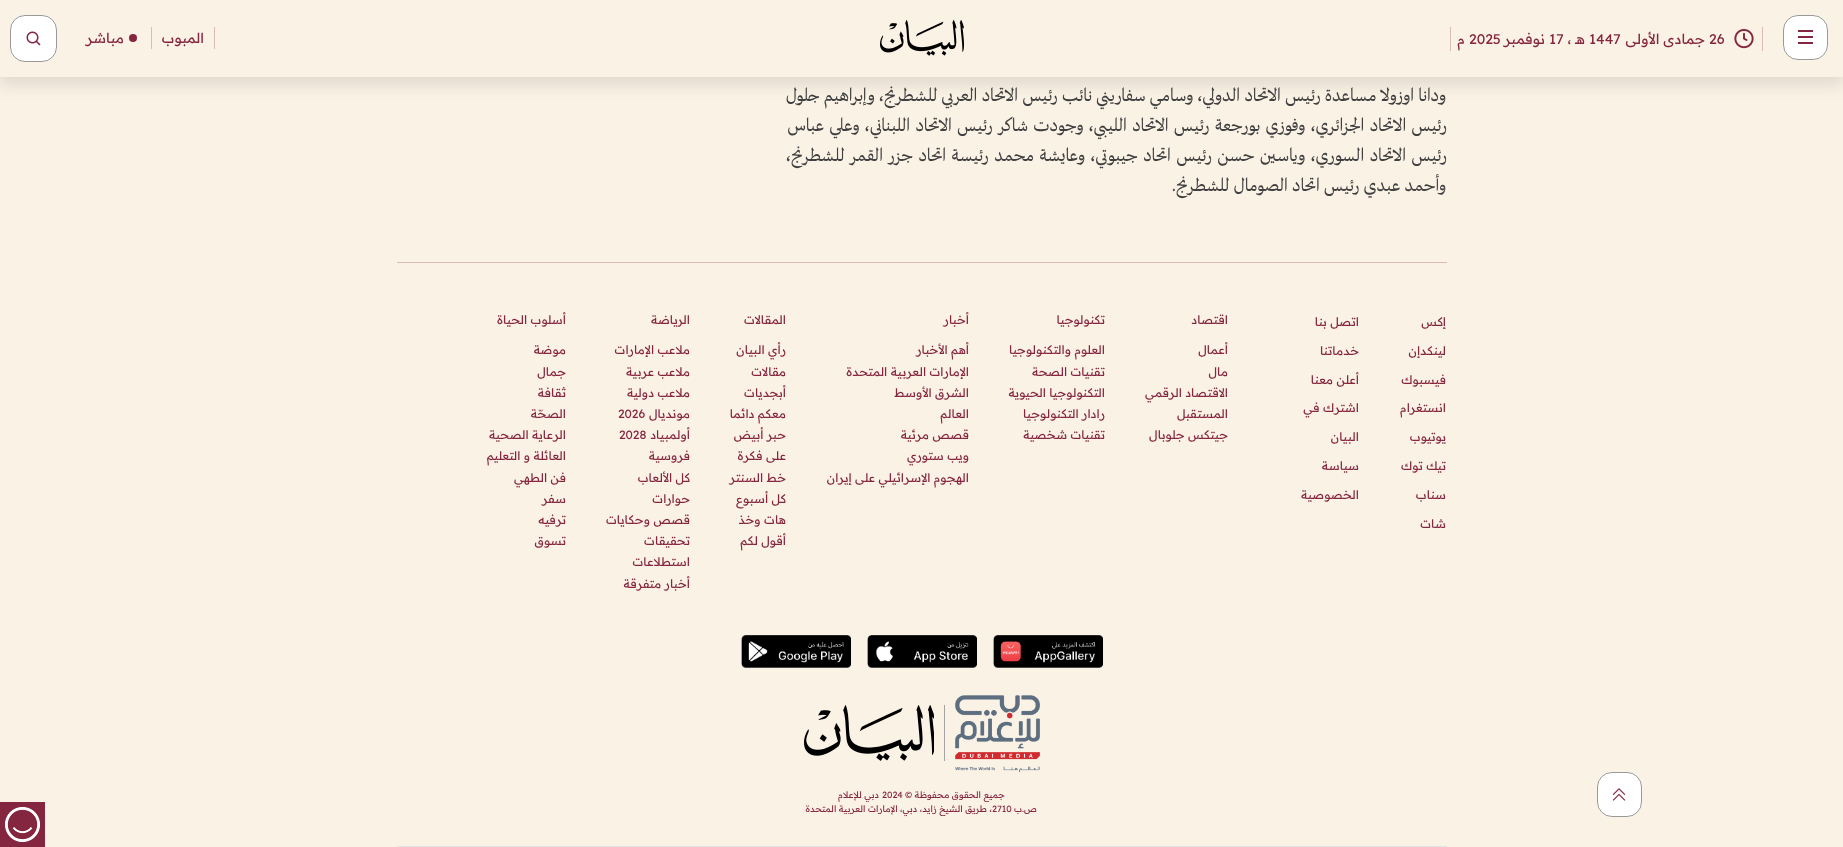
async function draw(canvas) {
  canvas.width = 1843
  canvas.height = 847
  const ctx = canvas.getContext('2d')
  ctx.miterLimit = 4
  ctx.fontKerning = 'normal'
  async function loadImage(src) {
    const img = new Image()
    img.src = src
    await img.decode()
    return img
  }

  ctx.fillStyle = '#fbf2e6'
  ctx.fillRect(0, 0, 1843, 847)
  ctx.fillStyle = '#0000001a'
  ctx.filter = 'blur(8px)'
  ctx.beginPath()
  ctx.rect(0, 8, 1843, 77)
  ctx.fill()
  ctx.filter = 'none'
  ctx.fillStyle = '#fbf2e6'
  ctx.fillRect(0, 0, 1843, 77)
  ctx.fillStyle = '#fff'
  ctx.beginPath()
  ctx.roundRect(1783, 15, 45, 45, 15)
  ctx.fill()
  ctx.beginPath()
  ctx.roundRect(1783.5, 15.5, 44, 44, 14.5)
  ctx.strokeStyle = '#00000066'
  ctx.stroke()
  ctx.fillStyle = '#84263f'
  ctx.fillRect(1798, 30, 15, 2)
  ctx.fillRect(1798, 36, 15, 2)
  ctx.fillRect(1798, 42, 15, 2)
  ctx.fillStyle = '#dbbbb6'
  ctx.fillRect(1762, 27, 1, 24)
  ctx.fillRect(1450, 27, 1, 24)
  ctx.drawImage(await loadImage('image0.png'), 1734, 29, 20, 20)
  ctx.font = '14px Readex Pro'
  ctx.fillStyle = '#84263f'
  ctx.fillText('26', 1709, 44)
  ctx.direction = 'rtl'
  ctx.fillText('جمادى الأولى', 1705, 44)
  ctx.direction = 'ltr'
  ctx.fillText('1447', 1589, 44)
  ctx.direction = 'rtl'
  ctx.fillText('هـ ،', 1585, 44)
  ctx.direction = 'ltr'
  ctx.fillText('17', 1549, 44)
  ctx.direction = 'rtl'
  ctx.fillText('نوفمبر', 1545, 44)
  ctx.direction = 'ltr'
  ctx.fillText('2025', 1469, 44)
  ctx.direction = 'rtl'
  ctx.fillText('م', 1465, 44)
  ctx.drawImage(await loadImage('image1.png'), 880, 20, 84, 36)
  ctx.fillStyle = '#dbbbb6'
  ctx.fillRect(214, 27, 1, 22)
  ctx.fillRect(151, 27, 1, 22)
  ctx.fillStyle = '#84263f'
  ctx.fillText('المبوب', 204, 43)
  ctx.beginPath()
  ctx.arc(133, 38, 4, 0, 2 * Math.PI)
  ctx.fill()
  ctx.fillText('مباشر', 124, 43)
  ctx.fillStyle = '#fff'
  ctx.beginPath()
  ctx.roundRect(10, 15, 47, 47, 15)
  ctx.fill()
  ctx.beginPath()
  ctx.roundRect(10.5, 15.5, 46, 46, 14.5)
  ctx.stroke()
  ctx.drawImage(await loadImage('image2.png'), 26, 31, 15, 15)
  ctx.font = '20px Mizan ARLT'
  ctx.fillStyle = '#404040'
  ctx.fillText('ودانا اوزولا مساعدة رئيس الاتحاد الدولي، وسامي سفاريني نائب رئيس الاتحاد العربي للشطرنج، وإبراهيم جلول', 1446, 101)
  ctx.wordSpacing = '1.1px'
  ctx.fillText('رئيس الاتحاد الجزائري، وفوزي بورجعة رئيس الاتحاد الليبي، وجودت شاكر رئيس الاتحاد اللبناني، وعلي عباس', 1447, 131)
  ctx.wordSpacing = '1.2px'
  ctx.fillText('رئيس الاتحاد السوري، وياسين حسن رئيس اتحاد جيبوتي، وعايشة محمد رئيسة اتحاد جزر القمر للشطرنج،', 1447, 161)
  ctx.wordSpacing = '0px'
  ctx.fillText('وأحمد عبدي رئيس اتحاد الصومال للشطرنج.', 1446, 191)
  ctx.fillStyle = '#fff'
  ctx.beginPath()
  ctx.roundRect(1597, 772, 45, 45, 15)
  ctx.fill()
  ctx.beginPath()
  ctx.roundRect(1597.5, 772.5, 44, 44, 14.5)
  ctx.stroke()
  ctx.drawImage(await loadImage('image3.png'), 1612, 788, 14, 13)
  ctx.fillStyle = '#dbbbb6'
  ctx.fillRect(397, 262, 1050, 1)
  ctx.font = '12px Readex Pro'
  ctx.fillStyle = '#84263f'
  ctx.fillText('إكس', 1446, 326)
  ctx.fillText('لينكدإن', 1446, 355)
  ctx.fillText('فيسبوك', 1446, 384)
  ctx.fillText('انستغرام', 1446, 412)
  ctx.fillText('يوتيوب', 1446, 441)
  ctx.fillText('تيك توك', 1446, 470)
  ctx.fillText('سناب', 1446, 499)
  ctx.fillText('شات', 1446, 528)
  ctx.fillText('اتصل بنا', 1359, 326)
  ctx.fillText('خدماتنا', 1359, 355)
  ctx.fillText('أعلن معنا', 1359, 384)
  ctx.fillText('اشترك في', 1359, 412)
  ctx.fillText('البيان', 1359, 441)
  ctx.fillText('سياسة', 1359, 470)
  ctx.fillText('الخصوصية', 1359, 499)
  ctx.fillText('اقتصاد', 1228, 324)
  ctx.fillText('أعمال', 1228, 354)
  ctx.fillText('مال', 1228, 376)
  ctx.fillText('الاقتصاد الرقمي', 1228, 397)
  ctx.fillText('المستقبل', 1228, 418)
  ctx.fillText('جيتكس جلوبال', 1228, 439)
  ctx.fillText('تكنولوجيا', 1105, 324)
  ctx.fillText('العلوم والتكنولوجيا', 1105, 354)
  ctx.fillText('تقنيات الصحة', 1105, 376)
  ctx.fillText('التكنولوجيا الحيوية', 1105, 397)
  ctx.fillText('رادار التكنولوجيا', 1105, 418)
  ctx.fillText('تقنيات شخصية', 1105, 439)
  ctx.fillText('أخبار', 969, 324)
  ctx.fillText('أهم الأخبار', 969, 354)
  ctx.fillText('الإمارات العربية المتحدة', 969, 376)
  ctx.fillText('الشرق الأوسط', 969, 397)
  ctx.fillText('العالم', 969, 418)
  ctx.fillText('قصص مرئية', 969, 439)
  ctx.fillText('ويب ستوري', 969, 460)
  ctx.fillText('الهجوم الإسرائيلي على إيران', 969, 482)
  ctx.fillText('المقالات', 786, 324)
  ctx.fillText('رأي البيان', 786, 354)
  ctx.fillText('مقالات', 786, 376)
  ctx.fillText('أبجديات', 786, 397)
  ctx.fillText('معكم دائما', 786, 418)
  ctx.fillText('حبر أبيض', 786, 439)
  ctx.fillText('على فكرة', 786, 460)
  ctx.fillText('خط السنتر', 786, 482)
  ctx.fillText('كل أسبوع', 786, 503)
  ctx.fillText('هات وخذ', 786, 524)
  ctx.fillText('أقول لكم', 786, 545)
  ctx.fillText('الرياضة', 690, 324)
  ctx.fillText('ملاعب الإمارات', 690, 354)
  ctx.fillText('ملاعب عربية', 690, 376)
  ctx.fillText('ملاعب دولية', 690, 397)
  ctx.fillText('مونديال', 690, 418)
  ctx.direction = 'ltr'
  ctx.fillText('2026', 618, 418)
  ctx.direction = 'rtl'
  ctx.fillText('أولمبياد', 690, 439)
  ctx.direction = 'ltr'
  ctx.fillText('2028', 619, 439)
  ctx.direction = 'rtl'
  ctx.fillText('فروسية', 690, 460)
  ctx.fillText('كل الألعاب', 690, 482)
  ctx.fillText('حوارات', 690, 503)
  ctx.fillText('قصص وحكايات', 690, 524)
  ctx.fillText('تحقيقات', 690, 545)
  ctx.fillText('استطلاعات', 690, 566)
  ctx.fillText('أخبار متفرقة', 690, 588)
  ctx.fillText('أسلوب الحياة', 566, 324)
  ctx.fillText('موضة', 566, 354)
  ctx.fillText('جمال', 566, 376)
  ctx.fillText('ثقافة', 566, 397)
  ctx.fillText('الصحّة', 566, 418)
  ctx.fillText('الرعاية الصحية', 566, 439)
  ctx.fillText('العائلة و التعليم', 566, 460)
  ctx.fillText('فن الطهي', 566, 482)
  ctx.fillText('سفر', 566, 503)
  ctx.fillText('ترفيه', 566, 524)
  ctx.fillText('تسوق', 566, 545)
  ctx.fillStyle = '#e4e4e4'
  ctx.fillRect(397, 846, 1050, 1)
  ctx.drawImage(await loadImage('image4.png'), 993, 635, 110, 33)
  ctx.drawImage(await loadImage('image5.png'), 867, 635, 110, 33)
  ctx.drawImage(await loadImage('image6.png'), 741, 635, 110, 33)
  ctx.drawImage(await loadImage('image7.png'), 955, 695, 85, 77)
  ctx.fillStyle = '#a3a3a4'
  ctx.fillRect(944, 705, 1, 56)
  ctx.drawImage(await loadImage('image8.png'), 804, 705, 130, 56)
  ctx.font = '9px Readex Pro'
  ctx.fillStyle = '#84263f'
  ctx.fillText('جميع الحقوق محفوظة ©', 1005, 798)
  ctx.direction = 'ltr'
  ctx.fillText('2024', 882, 798)
  ctx.direction = 'rtl'
  ctx.fillText('دبي للإعلام', 879, 798)
  ctx.fillText('ص.ب', 1037, 812)
  ctx.direction = 'ltr'
  ctx.fillText('2710', 992, 812)
  ctx.direction = 'rtl'
  ctx.fillText('، طريق الشيخ زايد، دبي، الإمارات العربية المتحدة', 992, 812)
  ctx.fillRect(0, 802, 45, 45)
  ctx.drawImage(await loadImage('image9.png'), 5, 807, 35, 35)
}

draw(document.querySelector('canvas'))
